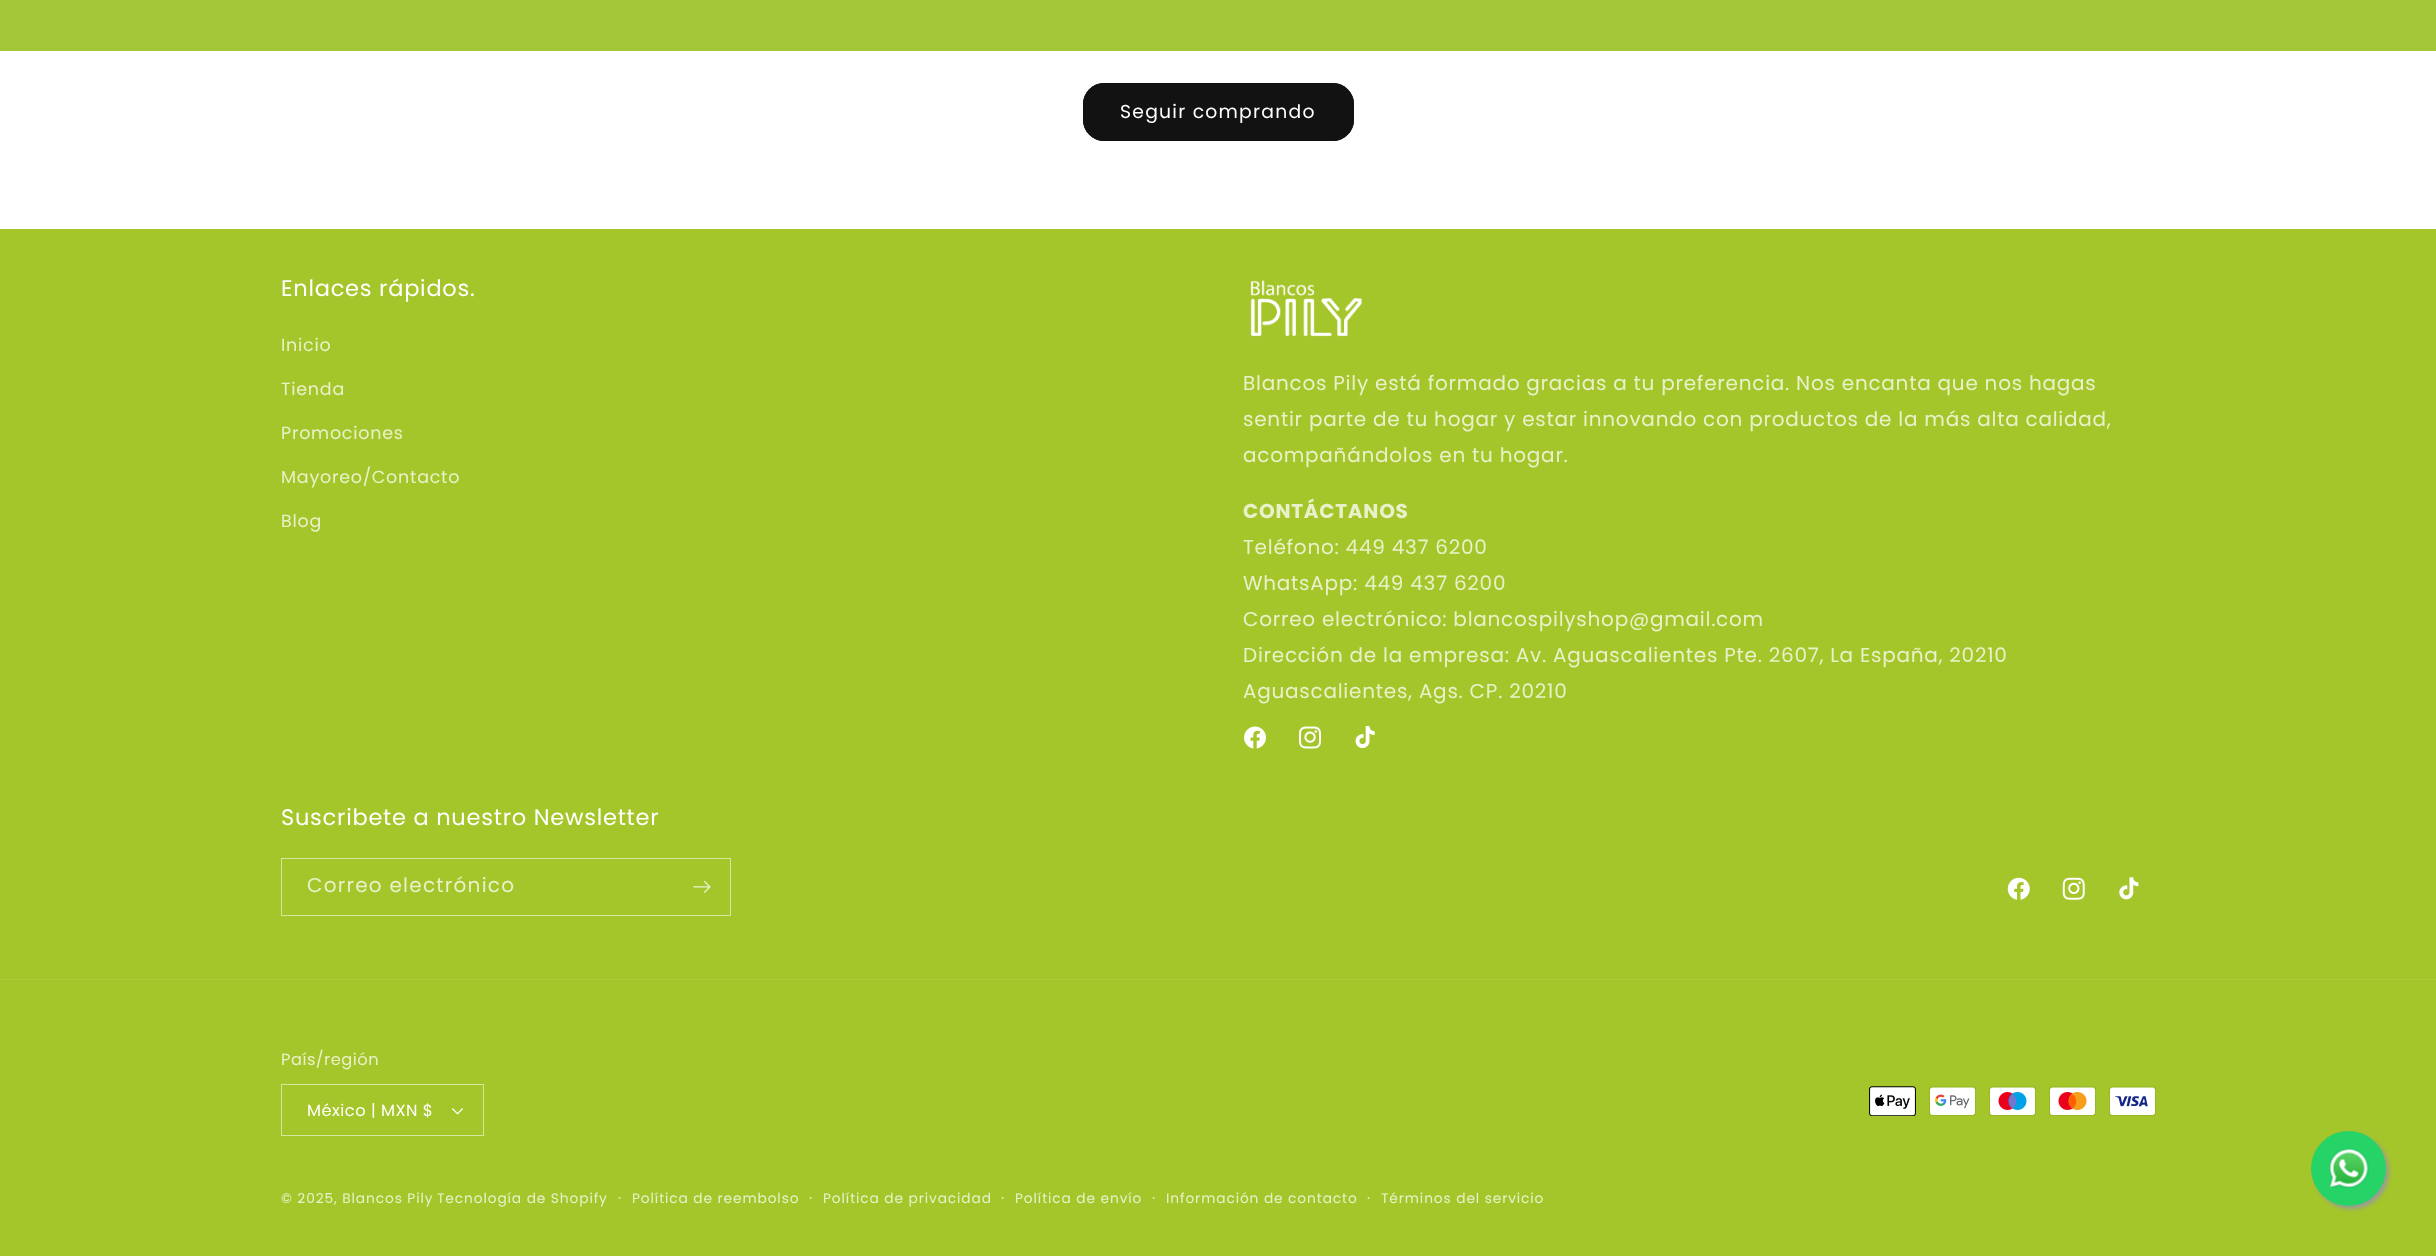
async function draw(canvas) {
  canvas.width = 2436
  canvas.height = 1256
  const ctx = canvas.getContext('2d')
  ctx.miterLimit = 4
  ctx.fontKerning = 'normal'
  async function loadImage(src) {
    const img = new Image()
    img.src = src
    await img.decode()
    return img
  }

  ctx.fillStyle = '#fff'
  ctx.fillRect(0, 0, 2436, 1256)
  ctx.fillStyle = '#a4c639'
  ctx.fillRect(0, 0, 2436, 51)
  ctx.fillStyle = '#121212'
  ctx.beginPath()
  ctx.roundRect(1083, 83, 271, 58, 21)
  ctx.fill()
  ctx.beginPath()
  ctx.roundRect(1083.5, 83.5, 270, 57, 20.5)
  ctx.strokeStyle = '#121212'
  ctx.stroke()
  ctx.letterSpacing = '1.25px'
  ctx.font = '18.75px Poppins'
  ctx.fillStyle = '#fff'
  ctx.fillText('Seguir comprando', 1120, 118)
  ctx.fillStyle = '#a5c62a'
  ctx.fillRect(0, 229, 2436, 1027)
  ctx.letterSpacing = '0.75px'
  ctx.font = '22.5px Poppins'
  ctx.fillStyle = '#fff'
  ctx.fillText('Enlaces rápidos.', 281, 296)
  ctx.font = '17.5px Poppins'
  ctx.fillStyle = '#e9f1ca'
  ctx.fillText('Inicio', 281, 351)
  ctx.fillText('Tienda', 281, 395)
  ctx.fillText('Promociones', 281, 439)
  ctx.fillText('Mayoreo/Contacto', 281, 483)
  ctx.fillText('Blog', 281, 527)
  ctx.drawImage(await loadImage('image0.png'), 1250, 280, 113, 57)
  ctx.font = '20px Poppins'
  ctx.fillText('Blancos Pily está formado gracias a tu preferencia. Nos encanta que nos hagas', 1243, 390)
  ctx.fillText('sentir parte de tu hogar y estar innovando con productos de la más alta calidad,', 1243, 426)
  ctx.fillText('acompañándolos en tu hogar.', 1243, 462)
  ctx.font = 'bold 20px Poppins'
  ctx.fillText('CONTÁCTANOS', 1243, 518)
  ctx.font = '20px Poppins'
  ctx.fillText('Teléfono: 449 437 6200', 1243, 554)
  ctx.fillText('WhatsApp: 449 437 6200', 1243, 590)
  ctx.fillText('Correo electrónico: blancospilyshop@gmail.com', 1243, 626)
  ctx.fillText('Dirección de la empresa: Av. Aguascalientes Pte. 2607, La España, 20210', 1243, 662)
  ctx.fillText('Aguascalientes, Ags. CP. 20210', 1243, 698)
  ctx.drawImage(await loadImage('image1.png'), 1244, 726, 22, 23)
  ctx.drawImage(await loadImage('image2.png'), 1299, 726, 22, 23)
  ctx.drawImage(await loadImage('image3.png'), 1355, 726, 20, 23)
  ctx.font = '22.5px Poppins'
  ctx.fillStyle = '#fff'
  ctx.fillText('Suscribete a nuestro Newsletter', 281, 825)
  ctx.strokeStyle = '#d7e59f'
  ctx.strokeRect(281.5, 858.5, 449, 57)
  ctx.letterSpacing = '1.25px'
  ctx.font = '20px Poppins'
  ctx.fillStyle = '#e9f1ca'
  ctx.fillText('Correo electrónico', 307, 892)
  ctx.drawImage(await loadImage('image4.png'), 693, 880, 18, 13)
  ctx.drawImage(await loadImage('image5.png'), 2007, 877, 23, 23)
  ctx.drawImage(await loadImage('image6.png'), 2062, 877, 23, 23)
  ctx.drawImage(await loadImage('image7.png'), 2119, 877, 20, 23)
  ctx.fillStyle = '#accb3b'
  ctx.fillRect(0, 979, 2436, 1)
  ctx.letterSpacing = '0.5px'
  ctx.font = '16.25px Poppins'
  ctx.fillStyle = '#e9f1ca'
  ctx.fillText('País/región', 281, 1065)
  ctx.drawImage(await loadImage('image8.png'), 451, 1108, 13, 7)
  ctx.strokeRect(281.5, 1084.5, 202, 51)
  ctx.fillStyle = '#fff'
  ctx.fillText('México | MXN $', 307, 1116)
  ctx.drawImage(await loadImage('image9.png'), 1869, 1086, 47, 30)
  ctx.drawImage(await loadImage('image10.png'), 1929, 1086, 47, 30)
  ctx.drawImage(await loadImage('image11.png'), 1989, 1086, 47, 30)
  ctx.drawImage(await loadImage('image12.png'), 2049, 1086, 47, 30)
  ctx.drawImage(await loadImage('image13.png'), 2109, 1086, 47, 30)
  ctx.letterSpacing = '0.9px'
  ctx.font = '13.75px Poppins'
  ctx.fillStyle = '#e9f1ca'
  ctx.fillText('© 2025, Blancos Pily', 281, 1203)
  ctx.fillText('Tecnología de Shopify', 437, 1203)
  ctx.font = '15px Poppins'
  ctx.fillText('·', 618, 1203)
  ctx.font = '13.75px Poppins'
  ctx.fillText('Política de reembolso', 632, 1203)
  ctx.font = '15px Poppins'
  ctx.fillText('·', 809, 1203)
  ctx.font = '13.75px Poppins'
  ctx.fillText('Política de privacidad', 823, 1203)
  ctx.font = '15px Poppins'
  ctx.fillText('·', 1001, 1203)
  ctx.font = '13.75px Poppins'
  ctx.fillText('Política de envío', 1015, 1203)
  ctx.font = '15px Poppins'
  ctx.fillText('·', 1152, 1203)
  ctx.font = '13.75px Poppins'
  ctx.fillText('Información de contacto', 1166, 1203)
  ctx.font = '15px Poppins'
  ctx.fillText('·', 1367, 1203)
  ctx.font = '13.75px Poppins'
  ctx.fillText('Términos del servicio', 1381, 1203)
  ctx.fillStyle = '#999'
  ctx.filter = 'blur(2px)'
  ctx.beginPath()
  ctx.roundRect(2314, 1134, 75, 75, 37.5)
  ctx.fill()
  ctx.filter = 'none'
  ctx.fillStyle = '#25d366'
  ctx.beginPath()
  ctx.arc(2348.5, 1168.5, 37.5, 0, 2 * Math.PI)
  ctx.fill()
  ctx.drawImage(await loadImage('image14.png'), 2329, 1148, 40, 40)
}

draw(document.querySelector('canvas'))
